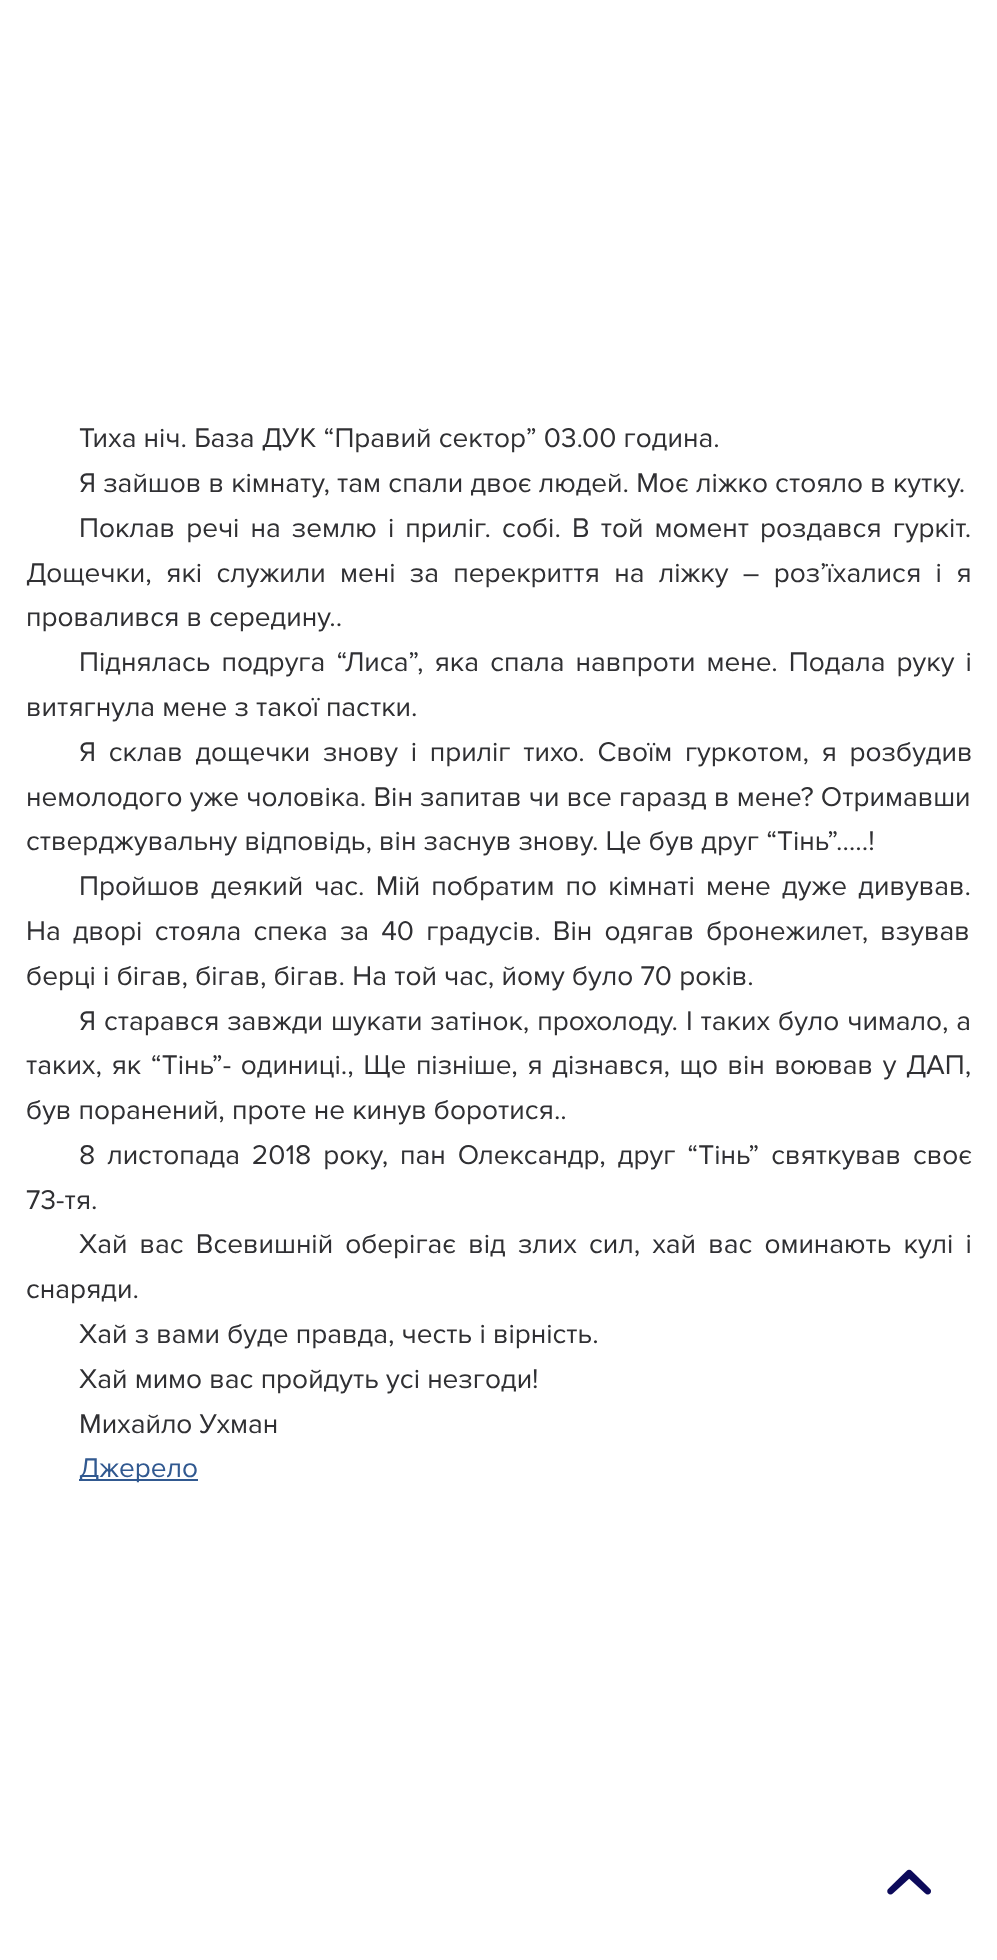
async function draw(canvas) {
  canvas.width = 997
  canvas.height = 1960
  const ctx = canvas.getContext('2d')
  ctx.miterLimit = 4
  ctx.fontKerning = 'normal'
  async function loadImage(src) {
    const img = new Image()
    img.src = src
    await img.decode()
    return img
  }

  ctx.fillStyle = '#fff'
  ctx.fillRect(0, 0, 997, 1960)
  ctx.font = '28px Proxima Nova'
  ctx.fillStyle = '#303033'
  ctx.fillText('Тиха ніч. База ДУК “Правий сектор” 03.00 година.', 79, 447)
  ctx.fillText('Я зайшов в кімнату, там спали двоє людей. Моє ліжко стояло в кутку.', 79, 492)
  ctx.wordSpacing = '3.9px'
  ctx.fillText('Поклав речі на землю і приліг. собі. В той момент роздався гуркіт.', 79, 537)
  ctx.wordSpacing = '7.1px'
  ctx.fillText('Дощечки, які служили мені за перекриття на ліжку – роз’їхалися і я', 26, 582)
  ctx.wordSpacing = '0px'
  ctx.fillText('провалився в середину..', 26, 626)
  ctx.wordSpacing = '3.9px'
  ctx.fillText('Піднялась подруга “Лиса”, яка спала навпроти мене. Подала руку і', 79, 671)
  ctx.wordSpacing = '0px'
  ctx.fillText('витягнула мене з такої пастки.', 26, 716)
  ctx.wordSpacing = '5.5px'
  ctx.fillText('Я склав дощечки знову і приліг тихо. Своїм гуркотом, я розбудив', 79, 761)
  ctx.wordSpacing = '0px'
  ctx.fillText('немолодого уже чоловіка. Він запитав чи все гаразд в мене? Отримавши', 26, 806)
  ctx.fillText('стверджувальну відповідь, він заснув знову. Це був друг “Тінь”…..!', 26, 850)
  ctx.wordSpacing = '4px'
  ctx.fillText('Пройшов деякий час. Мій побратим по кімнаті мене дуже дивував.', 79, 895)
  ctx.wordSpacing = '5px'
  ctx.fillText('На дворі стояла спека за 40 градусів. Він одягав бронежилет, взував', 26, 940)
  ctx.wordSpacing = '0px'
  ctx.fillText('берці і бігав, бігав, бігав. На той час, йому було 70 років.', 26, 985)
  ctx.wordSpacing = '0.75px'
  ctx.fillText('Я старався завжди шукати затінок, прохолоду. І таких було чимало, а', 79, 1030)
  ctx.wordSpacing = '2.4px'
  ctx.fillText('таких, як “Тінь”- одиниці., Ще пізніше, я дізнався, що він воював у ДАП,', 26, 1074)
  ctx.wordSpacing = '0px'
  ctx.fillText('був поранений, проте не кинув боротися..', 26, 1119)
  ctx.wordSpacing = '4.75px'
  ctx.fillText('8 листопада 2018 року, пан Олександр, друг “Тінь” святкував своє', 79, 1164)
  ctx.wordSpacing = '0px'
  ctx.fillText('73-тя.', 26, 1209)
  ctx.wordSpacing = '4.9px'
  ctx.fillText('Хай вас Всевишній оберігає від злих сил, хай вас оминають кулі і', 79, 1253)
  ctx.wordSpacing = '0px'
  ctx.fillText('снаряди.', 26, 1298)
  ctx.fillText('Хай з вами буде правда, честь і вірність.', 79, 1343)
  ctx.fillText('Хай мимо вас пройдуть усі незгоди!', 79, 1388)
  ctx.fillText('Михайло Ухман', 79, 1433)
  ctx.fillStyle = '#315990'
  ctx.fillRect(79, 1479, 119, 2)
  ctx.fillText('Джерело', 79, 1477)
  ctx.drawImage(await loadImage('image0.png'), 887, 1869, 44, 26)
}

draw(document.querySelector('canvas'))
